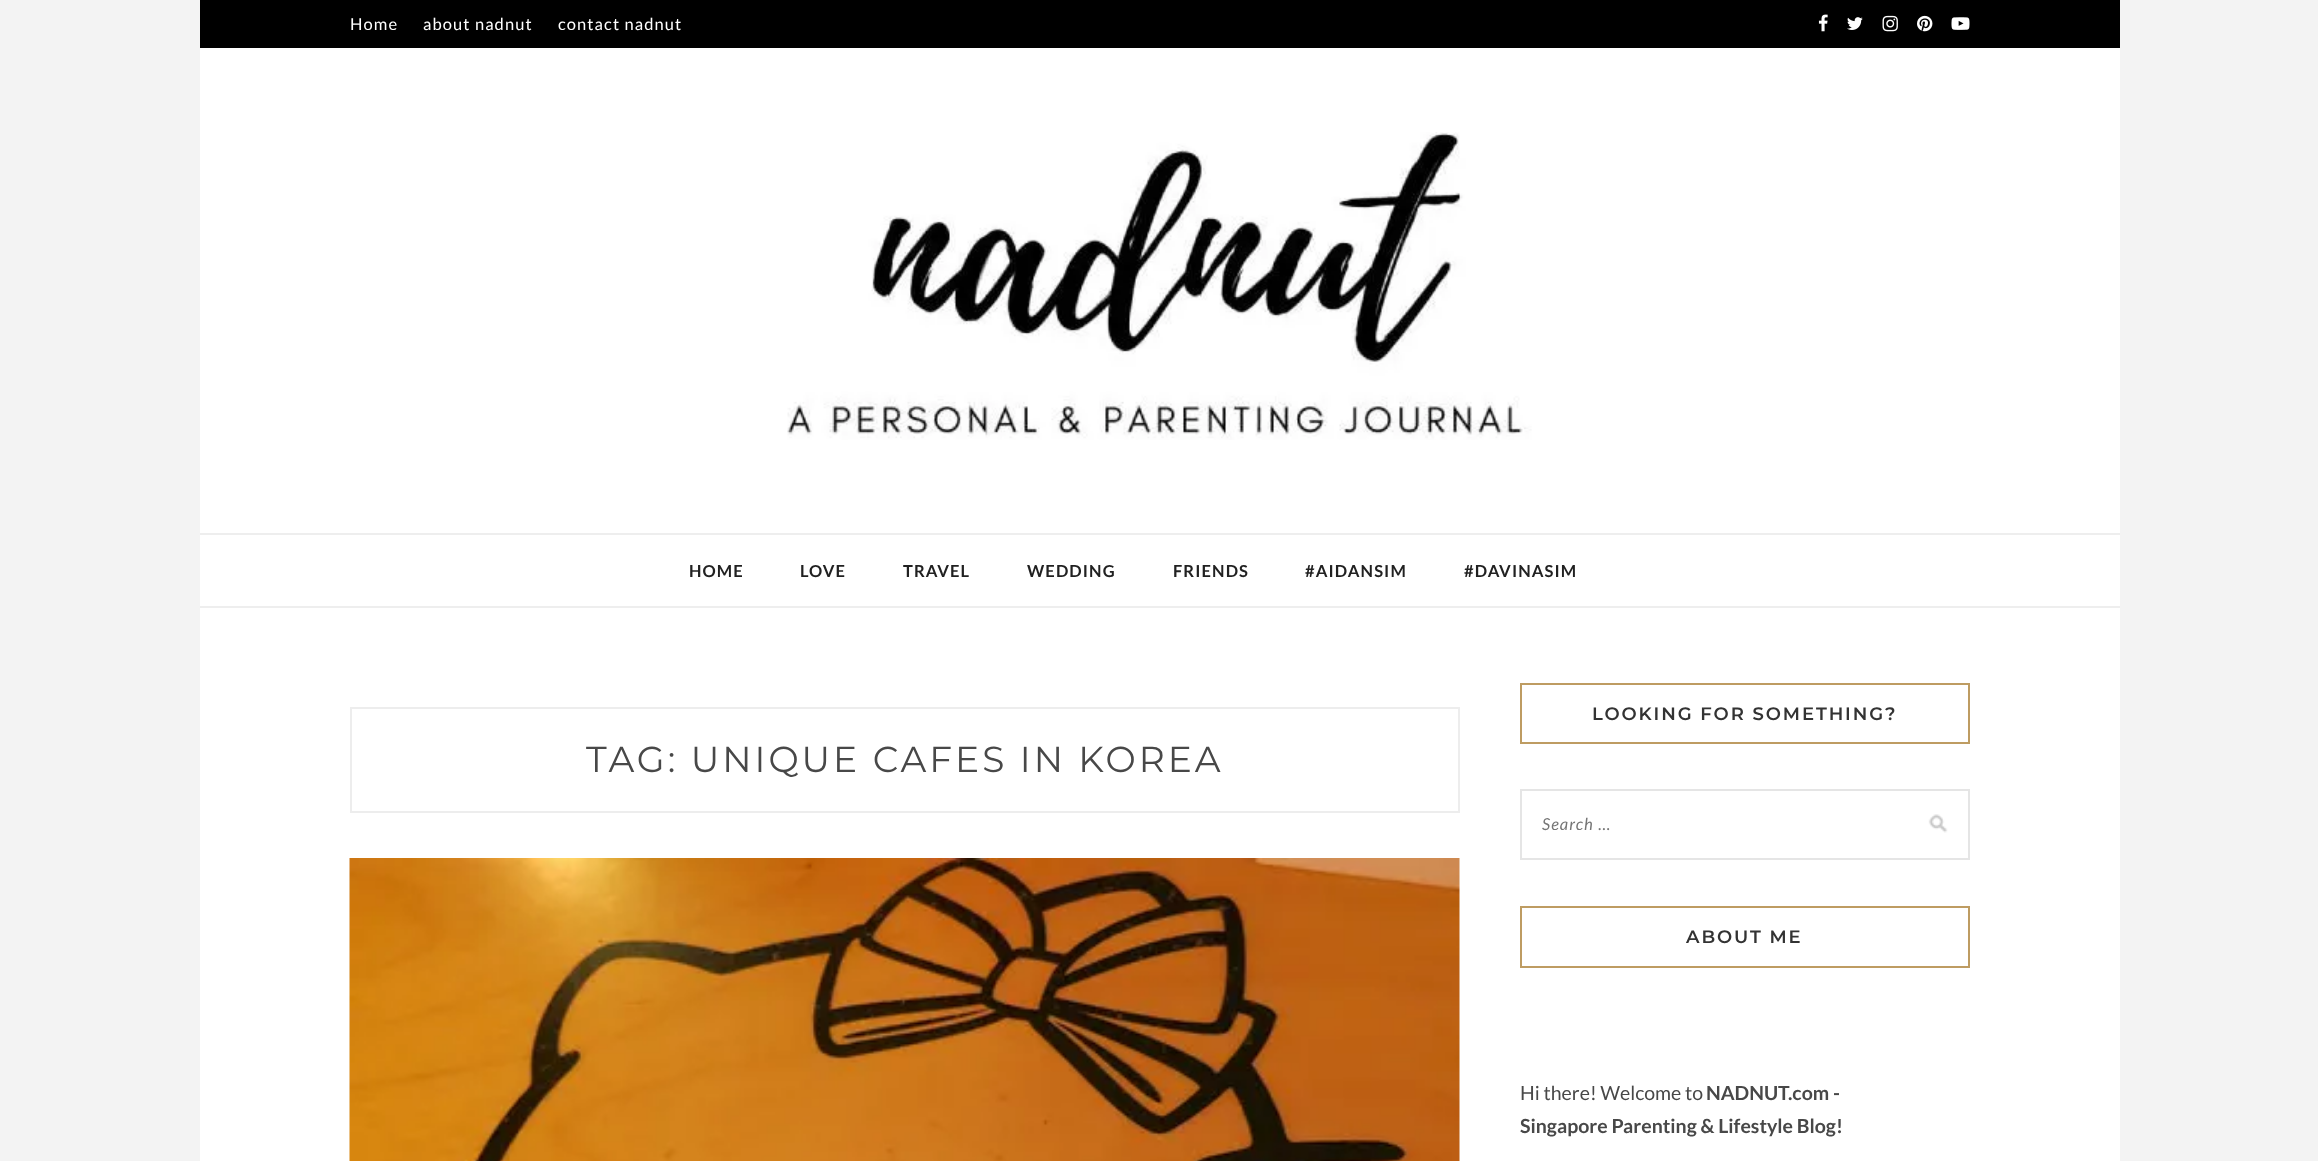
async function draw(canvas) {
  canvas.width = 2318
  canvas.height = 1161
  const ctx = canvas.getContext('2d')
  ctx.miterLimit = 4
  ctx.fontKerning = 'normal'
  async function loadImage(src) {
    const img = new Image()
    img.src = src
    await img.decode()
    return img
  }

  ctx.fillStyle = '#f3f3f3'
  ctx.fillRect(0, 0, 2318, 1161)
  ctx.fillStyle = '#fff'
  ctx.fillRect(200, 48, 1920, 1113)
  ctx.fillStyle = '#000'
  ctx.fillRect(200, 0, 1920, 48)
  ctx.letterSpacing = '1.1px'
  ctx.font = '16.5px Lato'
  ctx.fillStyle = '#fff'
  ctx.fillText('Home', 350, 30)
  ctx.fillText('about nadnut', 423, 30)
  ctx.fillText('contact nadnut', 558, 30)
  ctx.drawImage(await loadImage('image0.png'), 1818, 14, 10, 18)
  ctx.drawImage(await loadImage('image1.png'), 1847, 17, 16, 13)
  ctx.drawImage(await loadImage('image2.png'), 1882, 15, 16, 17)
  ctx.drawImage(await loadImage('image3.png'), 1917, 15, 16, 17)
  ctx.drawImage(await loadImage('image4.png'), 1951, 17, 19, 13)
  ctx.drawImage(await loadImage('image5.png'), 787, 132, 745, 308)
  ctx.fillStyle = '#eee'
  ctx.fillRect(200, 533, 1920, 2)
  ctx.fillRect(200, 606, 1920, 2)
  ctx.font = 'bold 16.5px Lato'
  ctx.fillStyle = '#212121'
  ctx.fillText('HOME', 689, 577)
  ctx.fillText('LOVE', 800, 577)
  ctx.fillText('TRAVEL', 903, 577)
  ctx.fillText('WEDDING', 1027, 577)
  ctx.fillText('FRIENDS', 1173, 577)
  ctx.fillText('#AIDANSIM', 1305, 577)
  ctx.fillText('#DAVINASIM', 1464, 577)
  ctx.strokeStyle = '#ededed'
  ctx.lineWidth = 2
  ctx.strokeRect(351, 708, 1108, 104)
  ctx.letterSpacing = '3px'
  ctx.font = '36px Montserrat'
  ctx.fillStyle = '#484848'
  ctx.fillText('TAG: UNIQUE CAFES IN KOREA', 586, 772)
  ctx.drawImage(await loadImage('image6.png'), 349, 858, 1111, 303)
  ctx.strokeStyle = '#be9c62'
  ctx.strokeRect(1521, 684, 448, 59)
  ctx.letterSpacing = '1.9px'
  ctx.font = '600 18px Montserrat'
  ctx.fillStyle = '#333'
  ctx.fillText('LOOKING FOR SOMETHING?', 1592, 720)
  ctx.drawImage(await loadImage('image7.png'), 1928, 814, 20, 19)
  ctx.strokeStyle = '#e5e5e5'
  ctx.strokeRect(1521, 790, 448, 69)
  ctx.letterSpacing = '1.1px'
  ctx.font = 'italic 16.5px Lato'
  ctx.fillStyle = '#757575'
  ctx.fillText('Search …', 1542, 830)
  ctx.strokeStyle = '#be9c62'
  ctx.strokeRect(1521, 907, 448, 60)
  ctx.letterSpacing = '1.9px'
  ctx.font = '600 18px Montserrat'
  ctx.fillStyle = '#333'
  ctx.fillText('ABOUT ME', 1686, 943)
  ctx.letterSpacing = '0px'
  ctx.font = '19.5px Lato'
  ctx.fillStyle = '#484848'
  ctx.fillText('Hi there! Welcome to', 1520, 1100)
  ctx.font = 'bold 19.5px Lato'
  ctx.fillText('NADNUT.com -', 1706, 1100)
  ctx.fillText('Singapore Parenting & Lifestyle Blog!', 1520, 1133)
}

draw(document.querySelector('canvas'))
